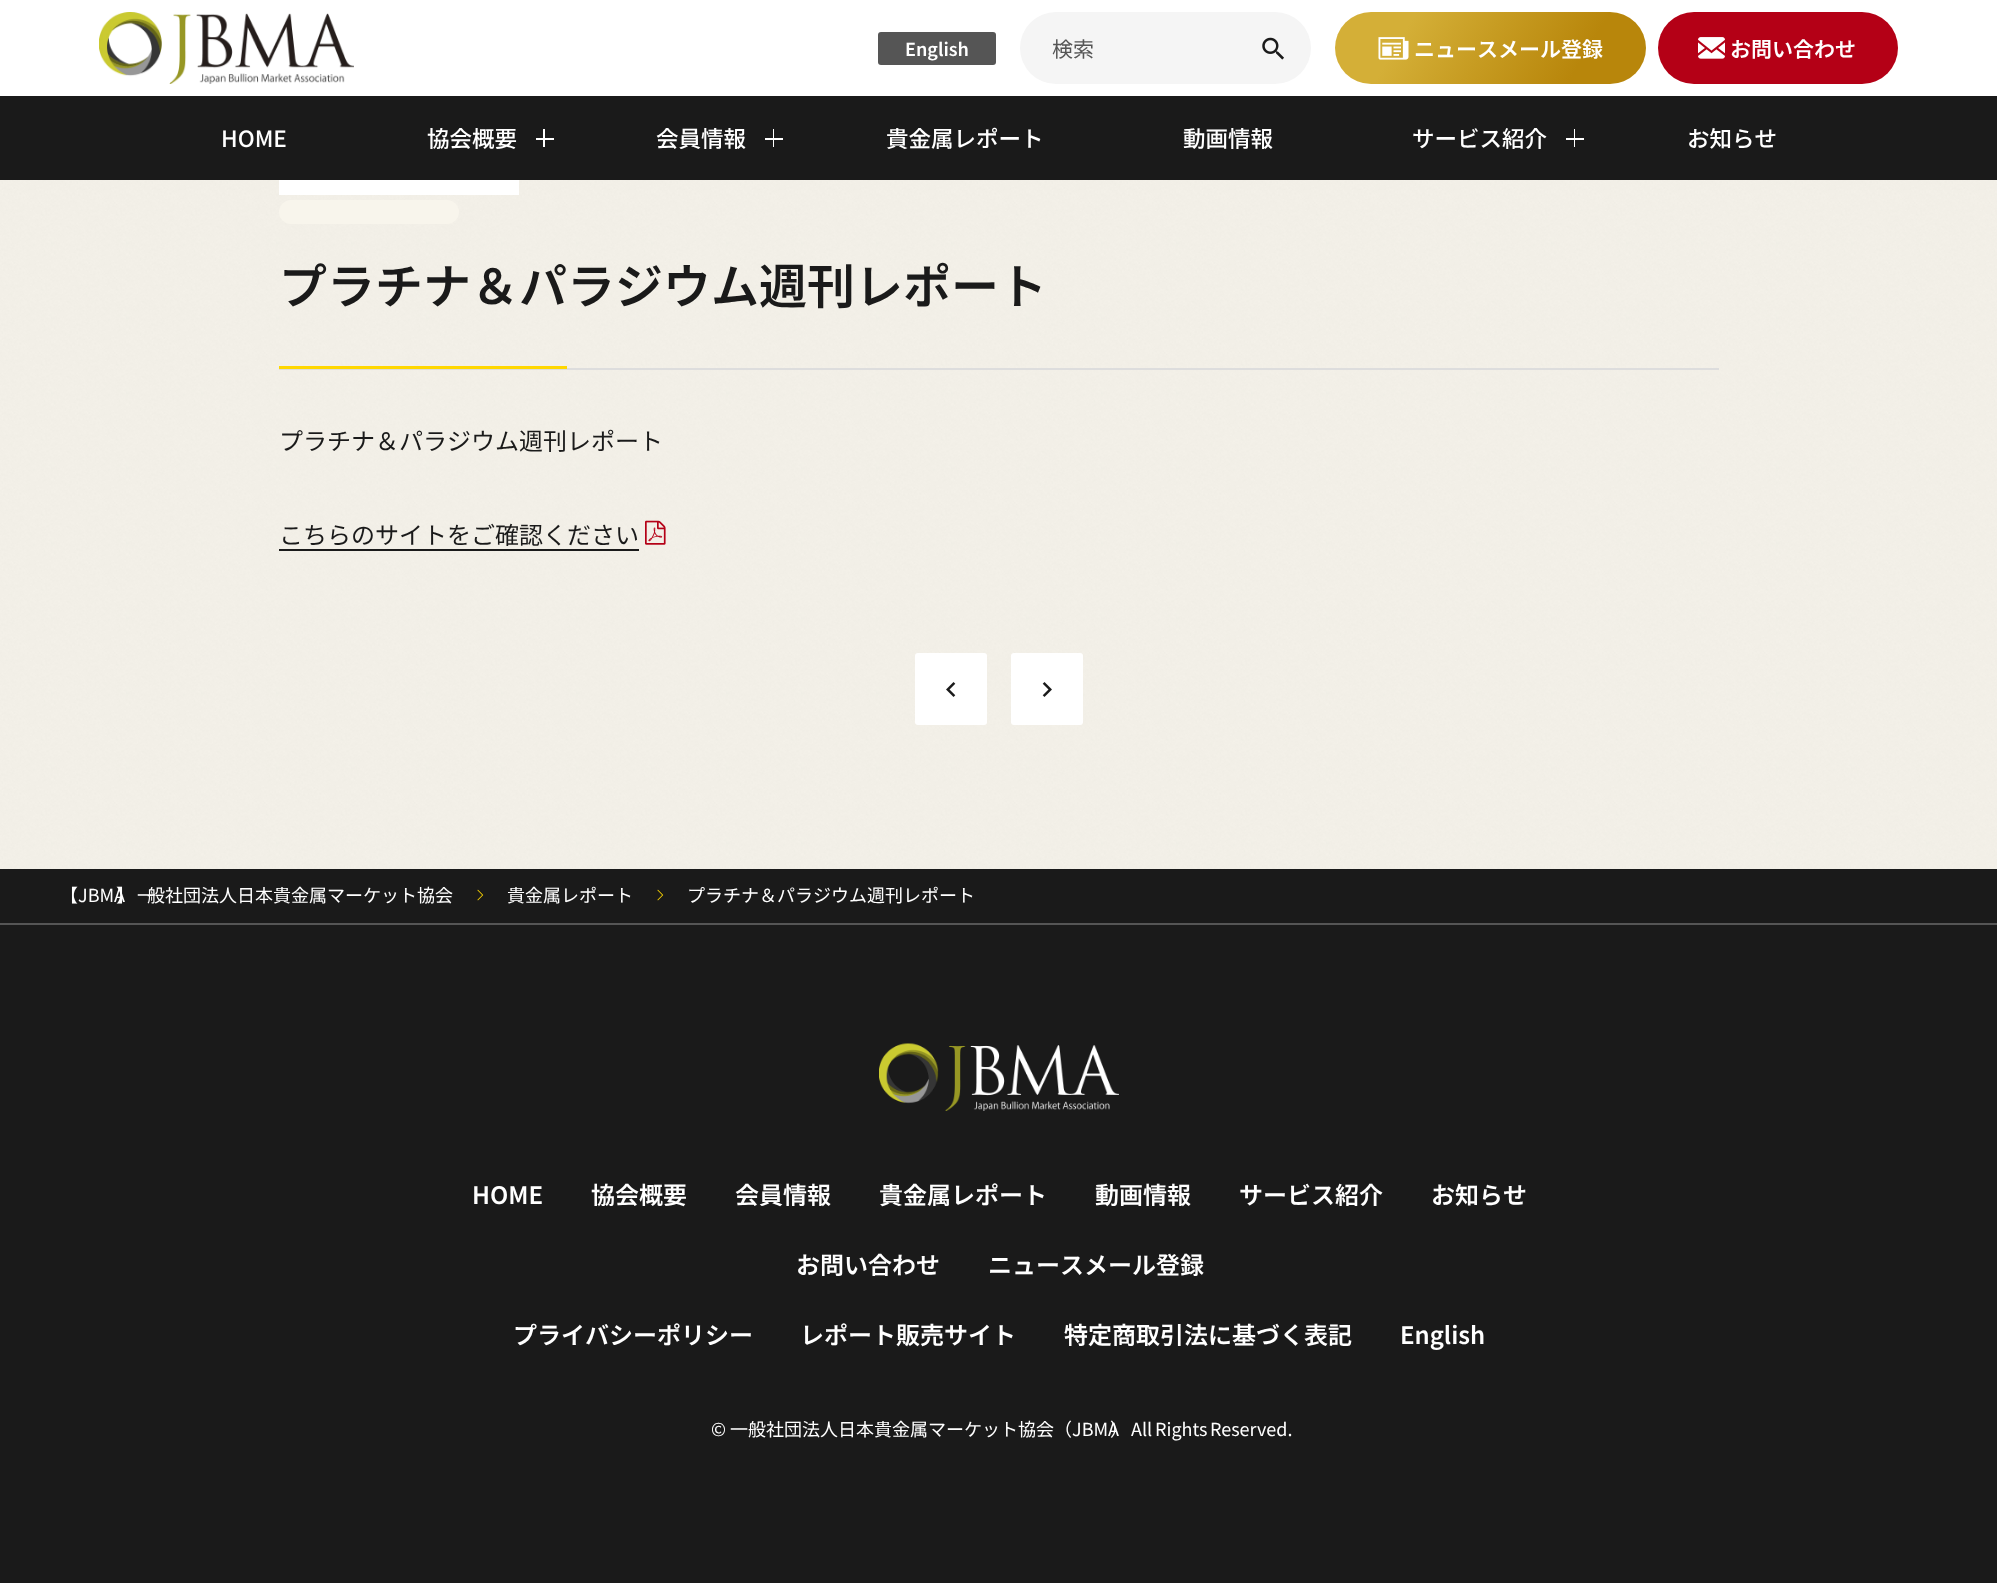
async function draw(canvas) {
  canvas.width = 1997
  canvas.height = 1583
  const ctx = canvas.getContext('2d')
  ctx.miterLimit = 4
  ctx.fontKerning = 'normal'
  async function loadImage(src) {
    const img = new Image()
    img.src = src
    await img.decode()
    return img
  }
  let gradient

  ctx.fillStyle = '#f8f5ec'
  ctx.fillRect(0, 0, 1997, 1583)
  ctx.drawImage(await loadImage('image0.png'), 0, 180, 1997, 689)
  ctx.fillStyle = '#fff'
  ctx.fillRect(0, 0, 1997, 96)
  ctx.drawImage(await loadImage('image1.png'), 99, 12, 255, 72)
  ctx.fillStyle = '#555'
  ctx.beginPath()
  ctx.roundRect(878, 32, 118, 33, 3)
  ctx.fill()
  ctx.font = '600 18px Noto Sans JP'
  ctx.fillStyle = '#fff'
  ctx.fillText('English', 905, 56)
  ctx.fillStyle = '#f5f5f5'
  ctx.beginPath()
  ctx.roundRect(1020, 12, 291, 72, 36)
  ctx.fill()
  ctx.font = '21px Noto Sans JP'
  ctx.fillStyle = '#555'
  ctx.fillText('検索', 1052, 57)
  ctx.drawImage(await loadImage('image2.png'), 1262, 37, 22, 23)
  gradient = ctx.createLinearGradient(1360, -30, 1620, 126)
  gradient.addColorStop(0.23, '#d4af37')
  gradient.addColorStop(0.48, '#c79c22')
  gradient.addColorStop(0.78, '#b8860b')
  ctx.fillStyle = gradient
  ctx.beginPath()
  ctx.roundRect(1335, 12, 311, 72, 36)
  ctx.fill()
  ctx.drawImage(await loadImage('image3.png'), 1378, 37, 31, 23)
  ctx.font = '600 21px Noto Sans JP'
  ctx.fillStyle = '#fff'
  ctx.fillText('ニュースメール登録', 1414, 57)
  ctx.fillStyle = '#b40016'
  ctx.beginPath()
  ctx.roundRect(1658, 12, 240, 72, 36)
  ctx.fill()
  ctx.drawImage(await loadImage('image4.png'), 1698, 37, 27, 22)
  ctx.fillStyle = '#fff'
  ctx.fillText('お問い合わせ', 1730, 57)
  ctx.fillStyle = '#1a1a1a'
  ctx.fillRect(0, 96, 1997, 84)
  ctx.font = '500 22.5px Noto Sans JP'
  ctx.fillStyle = '#fff'
  ctx.fillText('HOME', 221, 147)
  ctx.fillText('協会概要', 427, 147)
  ctx.fillRect(536, 138, 18, 2)
  ctx.fillRect(543, 129, 2, 18)
  ctx.fillText('会員情報', 656, 147)
  ctx.fillRect(765, 138, 18, 2)
  ctx.fillRect(773, 129, 1, 18)
  ctx.fillText('貴金属レポート', 886, 147)
  ctx.fillText('動画情報', 1183, 147)
  ctx.fillText('サービス紹介', 1412, 147)
  ctx.fillRect(1566, 138, 18, 2)
  ctx.fillRect(1574, 129, 1, 18)
  ctx.fillText('お知らせ', 1687, 147)
  ctx.fillRect(279, 180, 240, 15)
  ctx.fillStyle = '#f8f5ec'
  ctx.beginPath()
  ctx.roundRect(279, 200, 180, 24, 12)
  ctx.fill()
  ctx.fillStyle = '#ddd'
  ctx.fillRect(279, 368, 1440, 2)
  ctx.font = '600 48px Noto Sans JP'
  ctx.fillStyle = '#1a1a1a'
  ctx.fillText('プラチナ＆パラジウム週刊レポート', 279, 304)
  ctx.fillStyle = '#ffd700'
  ctx.fillRect(279, 366, 288, 3)
  ctx.font = '24px Noto Sans JP'
  ctx.fillStyle = '#1a1a1a'
  ctx.fillText('プラチナ＆パラジウム週刊レポート', 279, 450)
  ctx.fillText('こちらのサイトをご確認ください', 279, 544)
  ctx.fillRect(279, 549, 360, 2)
  ctx.drawImage(await loadImage('image5.png'), 645, 520, 21, 25)
  ctx.fillStyle = '#fff'
  ctx.beginPath()
  ctx.roundRect(915, 653, 72, 72, 3)
  ctx.fill()
  ctx.drawImage(await loadImage('image6.png'), 946, 682, 10, 15)
  ctx.beginPath()
  ctx.roundRect(1011, 653, 72, 72, 3)
  ctx.fill()
  ctx.drawImage(await loadImage('image7.png'), 1042, 682, 10, 15)
  ctx.fillStyle = '#1a1a1a'
  ctx.fillRect(0, 869, 1997, 714)
  ctx.fillStyle = '#555'
  ctx.fillRect(0, 923, 1997, 2)
  ctx.font = '18px Noto Sans JP'
  ctx.fillStyle = '#fff'
  ctx.fillText('【JBMA', 60, 902)
  ctx.fillText('】', 116, 902)
  ctx.fillText('一', 137, 902)
  ctx.fillText('般社団法人日本貴金属マーケット協会', 147, 902)
  ctx.drawImage(await loadImage('image8.png'), 477, 889, 7, 12)
  ctx.fillText('貴金属レポート', 507, 902)
  ctx.drawImage(await loadImage('image8.png'), 657, 889, 7, 12)
  ctx.fillText('プラチナ＆パラジウム週刊レポート', 687, 902)
  ctx.drawImage(await loadImage('image9.png'), 879, 1043, 240, 68)
  ctx.font = '600 24px Noto Sans JP'
  ctx.fillText('HOME', 472, 1204)
  ctx.fillText('協会概要', 591, 1204)
  ctx.fillText('会員情報', 735, 1204)
  ctx.fillText('貴金属レポート', 879, 1204)
  ctx.fillText('動画情報', 1095, 1204)
  ctx.fillText('サービス紹介', 1239, 1204)
  ctx.fillText('お知らせ', 1431, 1204)
  ctx.fillText('お問い合わせ', 796, 1274)
  ctx.fillText('ニュースメール登録', 988, 1274)
  ctx.fillText('プライバシーポリシー', 513, 1344)
  ctx.fillText('レポート販売サイト', 800, 1344)
  ctx.fillText('特定商取引法に基づく表記', 1064, 1344)
  ctx.fillText('English', 1400, 1344)
  ctx.font = '18px Noto Sans JP'
  ctx.fillText('© 一般社団法人日本貴金属マーケット協会（JBMA', 711, 1436)
  ctx.fillText('）', 1110, 1436)
  ctx.fillText('All', 1131, 1436)
  ctx.fillText('Rights', 1155, 1436)
  ctx.fillText('Reserved.', 1210, 1436)
}

draw(document.querySelector('canvas'))
